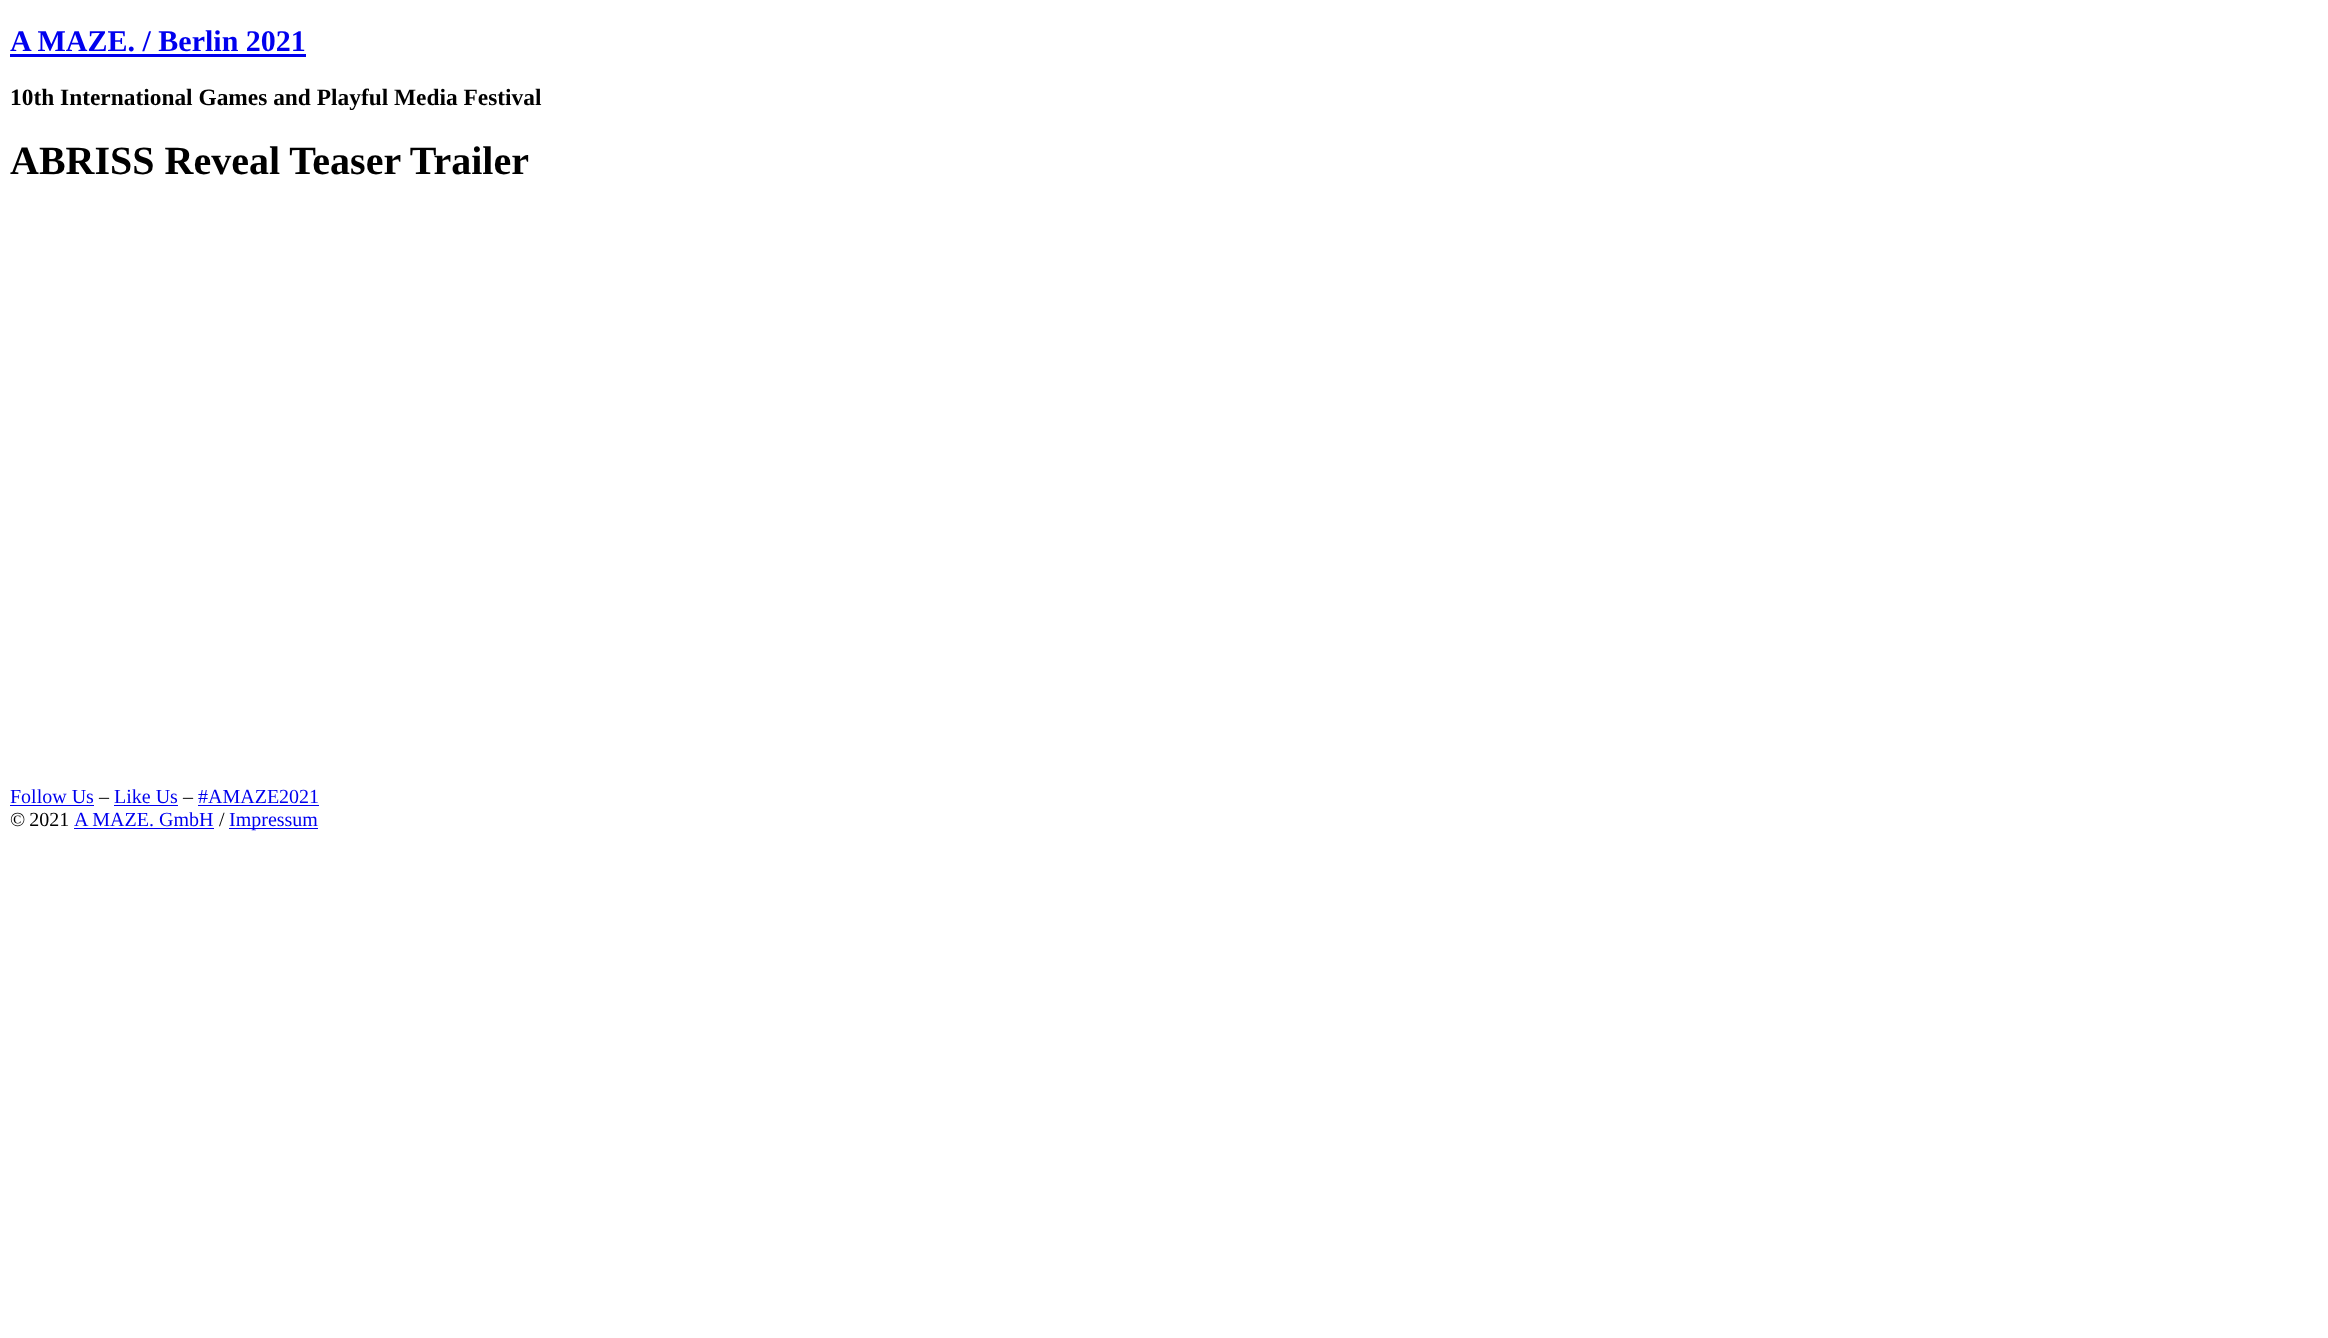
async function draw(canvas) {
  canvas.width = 2328
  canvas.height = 1338
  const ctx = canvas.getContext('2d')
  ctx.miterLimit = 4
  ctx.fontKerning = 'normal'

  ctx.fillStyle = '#fff'
  ctx.fillRect(0, 0, 2328, 1338)
  ctx.font = 'bold 30px Liberation Serif'
  ctx.fillStyle = '#00e'
  ctx.fillText('A MAZE. / Berlin 2021', 10, 51)
  ctx.fillRect(10, 54, 296, 3)
  ctx.font = 'bold 23.4px Liberation Serif'
  ctx.fillStyle = '#000'
  ctx.fillText('10th International Games and Playful Media Festival', 10, 105)
  ctx.font = 'bold 40px Liberation Serif'
  ctx.fillText('ABRISS Reveal Teaser Trailer', 10, 174)
  ctx.font = '20px Liberation Serif'
  ctx.fillStyle = '#00e'
  ctx.fillText('Follow Us', 10, 803)
  ctx.fillRect(10, 805, 84, 1)
  ctx.fillStyle = '#000'
  ctx.fillText('–', 99, 803)
  ctx.fillStyle = '#00e'
  ctx.fillText('Like Us', 114, 803)
  ctx.fillRect(114, 805, 64, 1)
  ctx.fillStyle = '#000'
  ctx.fillText('–', 183, 803)
  ctx.fillStyle = '#00e'
  ctx.fillText('#AMAZE2021', 198, 803)
  ctx.fillRect(198, 805, 121, 1)
  ctx.wordSpacing = '-1px'
  ctx.fillStyle = '#000'
  ctx.fillText('© 2021', 10, 826)
  ctx.wordSpacing = '0px'
  ctx.fillStyle = '#00e'
  ctx.fillText('A MAZE. GmbH', 74, 826)
  ctx.fillRect(74, 828, 140, 1)
  ctx.fillStyle = '#000'
  ctx.fillText('/', 219, 826)
  ctx.fillStyle = '#00e'
  ctx.fillRect(229, 828, 89, 1)
  ctx.fillText('Impressum', 229, 826)
}

draw(document.querySelector('canvas'))
